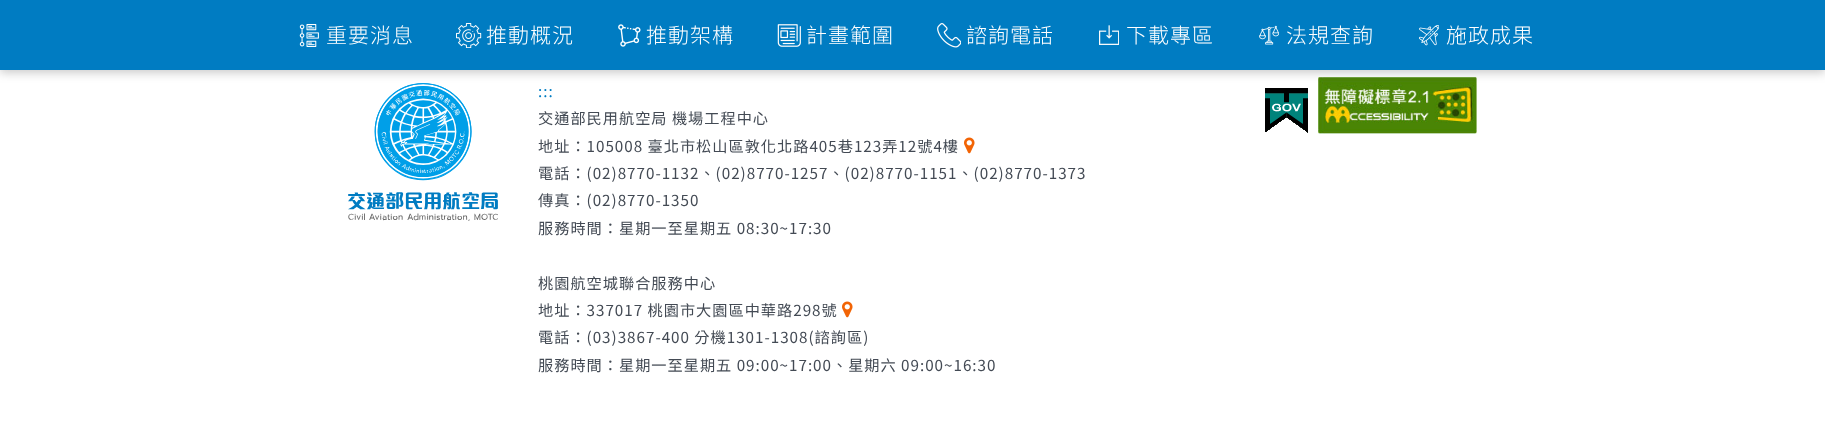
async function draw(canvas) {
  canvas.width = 1825
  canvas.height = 428
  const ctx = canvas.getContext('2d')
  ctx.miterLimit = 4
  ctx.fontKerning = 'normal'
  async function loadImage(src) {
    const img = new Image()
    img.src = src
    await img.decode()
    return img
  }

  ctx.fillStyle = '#fff'
  ctx.fillRect(0, 0, 1825, 428)
  ctx.drawImage(await loadImage('image8.png'), 348, 83, 150, 138)
  ctx.drawImage(await loadImage('image10.png'), 1265, 88, 43, 45)
  ctx.drawImage(await loadImage('image11.png'), 1318, 77, 159, 57)
  ctx.fillStyle = '#5757574d'
  ctx.filter = 'blur(5px)'
  ctx.beginPath()
  ctx.rect(0, 3, 1825, 70)
  ctx.fill()
  ctx.filter = 'none'
  ctx.fillStyle = '#007cc2'
  ctx.fillRect(0, 0, 1825, 70)
  ctx.drawImage(await loadImage('image0.png'), 299, 24, 20, 23)
  ctx.letterSpacing = '1px'
  ctx.font = '300 21px Noto Sans TC'
  ctx.fillStyle = '#fff'
  ctx.fillText('重要消息', 326, 43)
  ctx.drawImage(await loadImage('image1.png'), 456, 23, 26, 25)
  ctx.fillText('推動概況', 486, 43)
  ctx.drawImage(await loadImage('image2.png'), 618, 24, 23, 23)
  ctx.fillText('推動架構', 646, 43)
  ctx.drawImage(await loadImage('image3.png'), 777, 24, 24, 23)
  ctx.fillText('計畫範圍', 806, 43)
  ctx.drawImage(await loadImage('image4.png'), 937, 23, 24, 25)
  ctx.fillText('諮詢電話', 966, 43)
  ctx.drawImage(await loadImage('image5.png'), 1099, 25, 20, 20)
  ctx.fillText('下載專區', 1126, 43)
  ctx.drawImage(await loadImage('image6.png'), 1259, 25, 20, 20)
  ctx.fillText('法規查詢', 1286, 43)
  ctx.drawImage(await loadImage('image7.png'), 1419, 25, 20, 21)
  ctx.fillText('施政成果', 1446, 43)
  ctx.font = '15.2px Noto Sans TC'
  ctx.fillStyle = '#007cc2'
  ctx.fillText(':::', 538, 97)
  ctx.fillStyle = '#434a54'
  ctx.fillText('交通部民用航空局 機場工程中心', 538, 124)
  ctx.fillText('地址：105008 臺北市松山區敦化北路405巷123弄12號4樓', 538, 152)
  ctx.drawImage(await loadImage('image9.png'), 964, 137, 11, 17)
  ctx.fillText('電話：(02)8770-1132、(02)8770-1257、(02)8770-1151、(02)8770-1373', 538, 179)
  ctx.fillText('傳真：(02)8770-1350', 538, 206)
  ctx.fillText('服務時間：星期一至星期五 08:30~17:30', 538, 234)
  ctx.fillText('桃園航空城聯合服務中心', 538, 289)
  ctx.fillText('地址：337017 桃園市大園區中華路298號', 538, 316)
  ctx.drawImage(await loadImage('image9.png'), 842, 301, 11, 17)
  ctx.fillText('電話：(03)3867-400 分機1301-1308(諮詢區)', 538, 343)
  ctx.fillText('服務時間：星期一至星期五 09:00~17:00、星期六 09:00~16:30', 538, 371)
}

draw(document.querySelector('canvas'))
